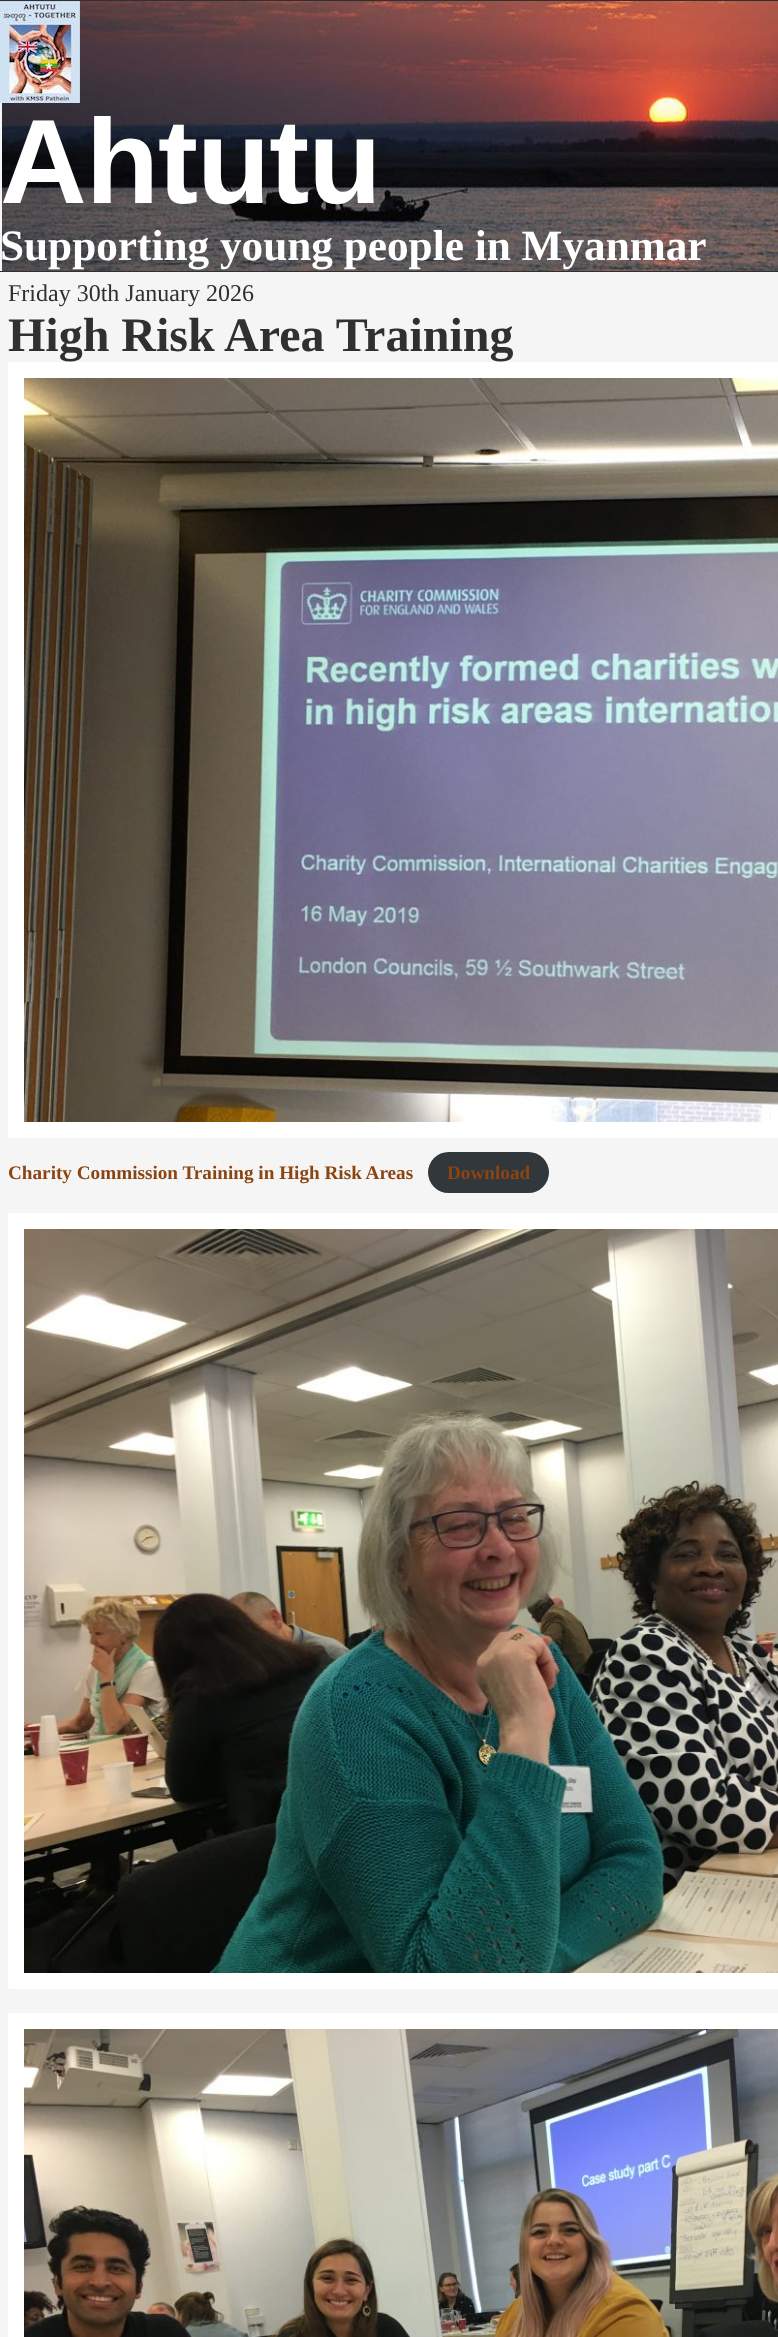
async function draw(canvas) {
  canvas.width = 778
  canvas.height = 2337
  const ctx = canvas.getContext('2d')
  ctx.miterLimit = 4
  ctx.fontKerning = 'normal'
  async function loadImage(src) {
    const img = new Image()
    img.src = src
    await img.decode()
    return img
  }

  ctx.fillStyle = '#f5f5f5'
  ctx.fillRect(0, 0, 778, 2337)
  ctx.fillStyle = '#303030'
  ctx.fillRect(0, 0, 778, 1)
  ctx.drawImage(await loadImage('image1.png'), 2, 1, 776, 270)
  ctx.drawImage(await loadImage('image0.png'), 0, 1, 80, 102)
  ctx.letterSpacing = '-1px'
  ctx.font = 'bold 120px Liberation Sans'
  ctx.fillStyle = '#fff'
  ctx.fillText('Ahtutu', 0, 203)
  ctx.letterSpacing = '0px'
  ctx.font = 'bold 43.25px Liberation Serif'
  ctx.fillText('Supporting young people in Myanmar', 0, 260)
  ctx.fillStyle = '#303030'
  ctx.fillRect(0, 271, 778, 1)
  ctx.font = '24px Liberation Serif'
  ctx.fillText('Friday 30th January 2026', 8, 301)
  ctx.font = 'bold 48px Liberation Serif'
  ctx.fillText('High Risk Area Training', 8, 351)
  ctx.fillStyle = '#fff'
  ctx.beginPath()
  ctx.roundRect(8, 362, 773, 776, 3)
  ctx.fill()
  ctx.drawImage(await loadImage('image2.png'), 24, 378, 754, 744)
  ctx.font = 'bold 19.2px Liberation Serif'
  ctx.fillStyle = '#8b4513'
  ctx.fillText('Charity Commission Training in High Risk Areas', 8, 1179)
  ctx.fillStyle = '#32373c'
  ctx.beginPath()
  ctx.roundRect(428, 1152, 121, 41, 20.5)
  ctx.fill()
  ctx.fillStyle = '#8b4513'
  ctx.fillText('Download', 447, 1179)
  ctx.fillStyle = '#fff'
  ctx.beginPath()
  ctx.roundRect(8, 1213, 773, 776, 3)
  ctx.fill()
  ctx.drawImage(await loadImage('image3.png'), 24, 1229, 754, 744)
  ctx.beginPath()
  ctx.roundRect(8, 2013, 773, 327, 3)
  ctx.fill()
  ctx.drawImage(await loadImage('image4.png'), 24, 2029, 754, 308)
}

draw(document.querySelector('canvas'))
